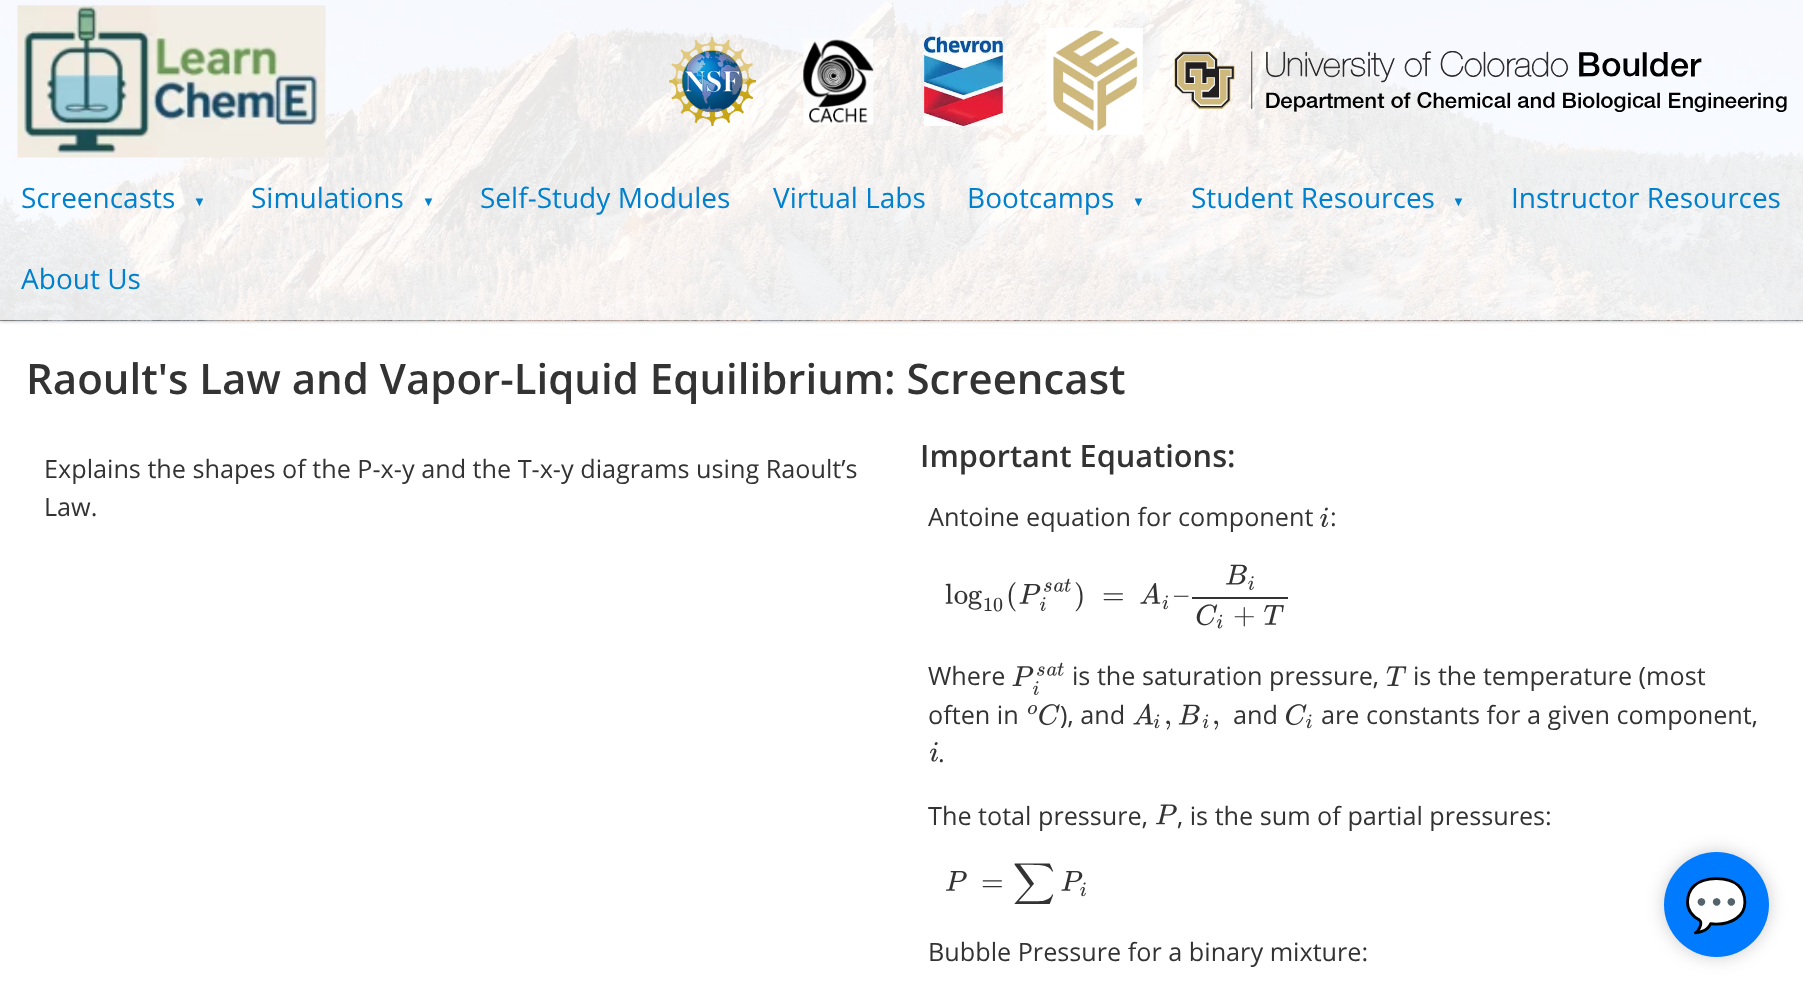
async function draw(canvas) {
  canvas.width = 1803
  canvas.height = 991
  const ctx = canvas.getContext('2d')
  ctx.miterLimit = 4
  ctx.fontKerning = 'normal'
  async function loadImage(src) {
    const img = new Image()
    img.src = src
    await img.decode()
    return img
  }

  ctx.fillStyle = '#fff'
  ctx.fillRect(0, 0, 1803, 991)
  ctx.fillStyle = '#00000080'
  ctx.filter = 'blur(2px)'
  ctx.beginPath()
  ctx.rect(0, 0, 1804, 320)
  ctx.fill()
  ctx.filter = 'none'
  ctx.drawImage(await loadImage('image0.png'), 0, 0, 1803, 321)
  ctx.drawImage(await loadImage('image1.png'), 17, 5, 309, 153)
  ctx.drawImage(await loadImage('image2.png'), 669, 37, 87, 89)
  ctx.drawImage(await loadImage('image3.png'), 803, 38, 71, 87)
  ctx.drawImage(await loadImage('image4.png'), 924, 36, 79, 90)
  ctx.drawImage(await loadImage('image5.png'), 1046, 28, 97, 107)
  ctx.drawImage(await loadImage('image6.png'), 1174, 51, 613, 61)
  ctx.font = '28px Open Sans'
  ctx.fillStyle = '#0180ce'
  ctx.fillText('Screencasts', 21, 208)
  ctx.letterSpacing = '3px'
  ctx.font = '13px Liberation Sans'
  ctx.fillText('▼', 193, 206)
  ctx.letterSpacing = '0px'
  ctx.font = '28px Open Sans'
  ctx.fillText('Simulations', 251, 208)
  ctx.letterSpacing = '3px'
  ctx.font = '13px Liberation Sans'
  ctx.fillText('▼', 422, 206)
  ctx.letterSpacing = '0px'
  ctx.font = '28px Open Sans'
  ctx.fillText('Self-Study Modules', 480, 208)
  ctx.fillText('Virtual Labs', 773, 208)
  ctx.fillText('Bootcamps', 967, 208)
  ctx.letterSpacing = '3px'
  ctx.font = '13px Liberation Sans'
  ctx.fillText('▼', 1132, 206)
  ctx.letterSpacing = '0px'
  ctx.font = '28px Open Sans'
  ctx.fillText('Student Resources', 1191, 208)
  ctx.letterSpacing = '3px'
  ctx.font = '13px Liberation Sans'
  ctx.fillText('▼', 1452, 206)
  ctx.letterSpacing = '0px'
  ctx.font = '28px Open Sans'
  ctx.fillText('Instructor Resources', 1511, 208)
  ctx.fillText('About Us', 21, 289)
  ctx.fillStyle = '#00000033'
  ctx.filter = 'blur(9px)'
  ctx.beginPath()
  ctx.roundRect(1664, 852, 105, 105, 52.5)
  ctx.fill()
  ctx.filter = 'none'
  ctx.fillStyle = '#007aff'
  ctx.beginPath()
  ctx.arc(1716.5, 904.5, 52.5, 0, 2 * Math.PI)
  ctx.fill()
  ctx.font = '52px Noto Color Emoji'
  ctx.fillStyle = '#fff'
  ctx.fillText('💬', 1684, 923)
  ctx.font = '600 42px Open Sans'
  ctx.fillStyle = '#333'
  ctx.fillText('Raoult\'s Law and Vapor-Liquid Equilibrium: Screencast', 26, 394)
  ctx.font = '25.2px Open Sans'
  ctx.fillText('Explains the shapes of the P-x-y and the T-x-y diagrams using Raoult’s', 44, 478)
  ctx.fillText('Law.', 44, 516)
  ctx.font = '600 30.75px Open Sans'
  ctx.fillText('Important Equations:', 920, 467)
  ctx.font = '25.2px Open Sans'
  ctx.fillText('Antoine equation for component', 928, 526)
  ctx.drawImage(await loadImage('image7.png'), 1320, 507, 9, 21)
  ctx.fillText(':', 1330, 526)
  ctx.font = '29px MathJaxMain'
  ctx.fillText('(', 1006, 604)
  ctx.drawImage(await loadImage('image8.png'), 1019, 584, 22, 20)
  ctx.drawImage(await loadImage('image9.png'), 1044, 582, 8, 10)
  ctx.drawImage(await loadImage('image10.png'), 1054, 582, 10, 10)
  ctx.drawImage(await loadImage('image11.png'), 1064, 578, 7, 14)
  ctx.drawImage(await loadImage('image12.png'), 1040, 597, 6, 14)
  ctx.fillText(')', 1074, 604)
  ctx.fillText('=', 1102, 604)
  ctx.drawImage(await loadImage('image13.png'), 1140, 583, 21, 21)
  ctx.drawImage(await loadImage('image14.png'), 1162, 595, 7, 15)
  ctx.fillText('–', 1174, 604)
  ctx.drawImage(await loadImage('image15.png'), 945, 583, 8, 21)
  ctx.drawImage(await loadImage('image16.png'), 954, 590, 14, 14)
  ctx.drawImage(await loadImage('image17.png'), 968, 590, 14, 20)
  ctx.font = '20px MathJaxMain'
  ctx.fillText('10', 983, 611)
  ctx.drawImage(await loadImage('image18.png'), 1226, 564, 21, 21)
  ctx.drawImage(await loadImage('image19.png'), 1248, 576, 6, 14)
  ctx.fillRect(1192, 597, 96, 2)
  ctx.drawImage(await loadImage('image20.png'), 1196, 604, 22, 22)
  ctx.drawImage(await loadImage('image21.png'), 1216, 614, 7, 15)
  ctx.font = '29px MathJaxMain'
  ctx.fillText('+', 1233, 624)
  ctx.drawImage(await loadImage('image22.png'), 1264, 605, 20, 20)
  ctx.font = '25.2px Open Sans'
  ctx.fillText('Where', 928, 685)
  ctx.drawImage(await loadImage('image23.png'), 1012, 666, 22, 20)
  ctx.drawImage(await loadImage('image9.png'), 1037, 666, 8, 10)
  ctx.drawImage(await loadImage('image10.png'), 1047, 666, 10, 10)
  ctx.drawImage(await loadImage('image11.png'), 1057, 662, 7, 14)
  ctx.drawImage(await loadImage('image12.png'), 1033, 681, 6, 14)
  ctx.fillText('is the saturation pressure,', 1072, 685)
  ctx.drawImage(await loadImage('image24.png'), 1386, 666, 21, 20)
  ctx.fillText('is the temperature (most', 1413, 685)
  ctx.fillText('often in', 928, 724)
  ctx.drawImage(await loadImage('image25.png'), 1027, 705, 10, 10)
  ctx.drawImage(await loadImage('image26.png'), 1039, 704, 21, 22)
  ctx.fillText('), and', 1060, 724)
  ctx.drawImage(await loadImage('image27.png'), 1133, 703, 21, 22)
  ctx.drawImage(await loadImage('image28.png'), 1153, 714, 7, 15)
  ctx.font = '29px MathJaxMain'
  ctx.fillText(',', 1164, 724)
  ctx.drawImage(await loadImage('image29.png'), 1178, 704, 22, 21)
  ctx.drawImage(await loadImage('image30.png'), 1202, 714, 7, 15)
  ctx.fillText(',', 1212, 724)
  ctx.font = '25.2px Open Sans'
  ctx.fillText('and', 1233, 724)
  ctx.drawImage(await loadImage('image31.png'), 1286, 704, 21, 22)
  ctx.drawImage(await loadImage('image32.png'), 1306, 714, 6, 15)
  ctx.fillText('are constants for a given component,', 1321, 724)
  ctx.drawImage(await loadImage('image33.png'), 929, 742, 9, 20)
  ctx.fillText('.', 938, 762)
  ctx.fillText('The total pressure,', 928, 825)
  ctx.drawImage(await loadImage('image34.png'), 1156, 804, 21, 21)
  ctx.fillText(', is the sum of partial pressures:', 1177, 825)
  ctx.drawImage(await loadImage('image35.png'), 946, 871, 21, 20)
  ctx.font = '29px MathJaxMain'
  ctx.fillText('=', 981, 891)
  ctx.font = '29px "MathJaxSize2"'
  ctx.fillText('∑', 1013, 891)
  ctx.drawImage(await loadImage('image8.png'), 1061, 871, 22, 20)
  ctx.drawImage(await loadImage('image36.png'), 1080, 882, 6, 15)
  ctx.font = '25.2px Open Sans'
  ctx.fillText('Bubble Pressure for a binary mixture:', 928, 961)
}

draw(document.querySelector('canvas'))
